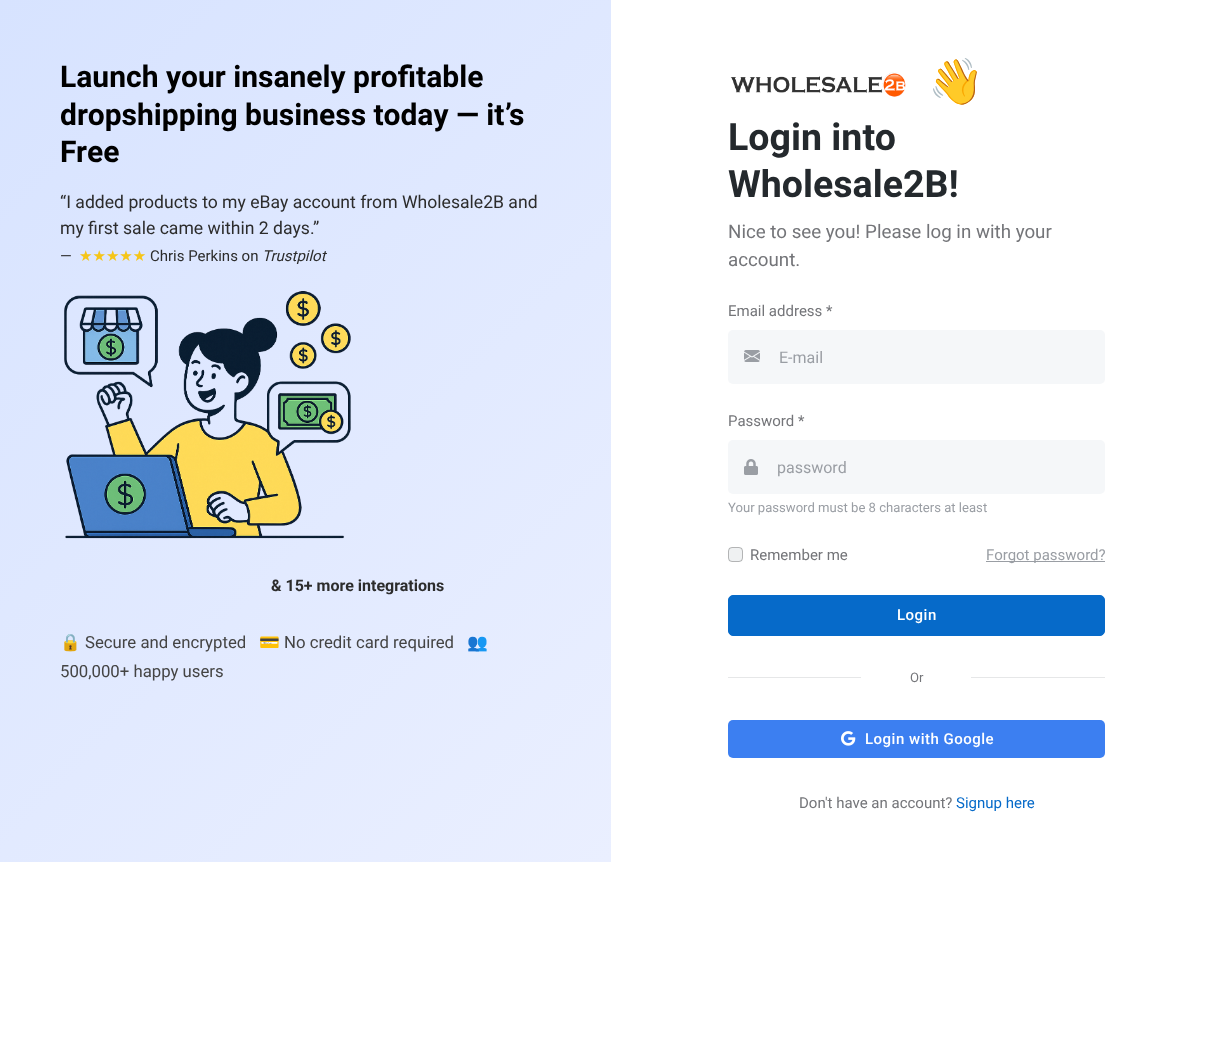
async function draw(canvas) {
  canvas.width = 1222
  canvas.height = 1038
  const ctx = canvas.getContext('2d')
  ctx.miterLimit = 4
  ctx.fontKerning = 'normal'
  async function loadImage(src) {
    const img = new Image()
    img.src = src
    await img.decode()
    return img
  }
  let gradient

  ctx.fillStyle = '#fff'
  ctx.fillRect(0, 0, 1222, 1038)
  gradient = ctx.createLinearGradient(-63, 63, 674, 799)
  gradient.addColorStop(0, '#d7e3ff')
  gradient.addColorStop(1, '#eaefff')
  ctx.fillStyle = gradient
  ctx.fillRect(0, 0, 611, 862)
  ctx.font = 'bold 30px Heebo'
  ctx.fillStyle = '#000'
  ctx.fillText('Launch your insanely profitable', 60, 87)
  ctx.fillText('dropshipping business today — it’s', 60, 125)
  ctx.fillText('Free', 60, 162)
  ctx.font = '17.6px Roboto'
  ctx.fillStyle = '#2c2c2c'
  ctx.fillText('“I added products to my eBay account from Wholesale2B and', 60, 208)
  ctx.fillText('my first sale came within 2 days.”', 60, 234)
  ctx.font = '15px Roboto'
  ctx.fillText('—', 60, 261)
  ctx.font = '15px DejaVu Sans'
  ctx.fillStyle = '#f5c518'
  ctx.fillText('★★★★★', 79, 261)
  ctx.font = '15px Roboto'
  ctx.fillStyle = '#2c2c2c'
  ctx.fillText('Chris Perkins on', 150, 261)
  ctx.font = 'italic 15px Roboto'
  ctx.fillText('Trustpilot', 262, 261)
  ctx.drawImage(await loadImage('image0.png'), 64, 291, 287, 248)
  ctx.font = 'bold 16px Roboto'
  ctx.fillText('& 15+ more integrations', 271, 591)
  ctx.font = '16.75px Noto Color Emoji'
  ctx.fillStyle = '#444'
  ctx.fillText('🔒', 60, 648)
  ctx.font = '16.75px Roboto'
  ctx.fillText('Secure and encrypted', 85, 648)
  ctx.font = '16.75px Noto Color Emoji'
  ctx.fillText('💳', 259, 648)
  ctx.font = '16.75px Roboto'
  ctx.fillText('No credit card required', 284, 648)
  ctx.font = '16.75px Noto Color Emoji'
  ctx.fillText('👥', 467, 648)
  ctx.font = '16.75px Roboto'
  ctx.fillText('500,000+ happy users', 60, 677)
  ctx.drawImage(await loadImage('image1.png'), 730, 72, 176, 25)
  ctx.font = '45px Noto Color Emoji'
  ctx.fillStyle = '#747579'
  ctx.fillText('👋', 928, 97)
  ctx.font = 'bold 37.5px Heebo'
  ctx.fillStyle = '#24292d'
  ctx.fillText('Login into', 728, 150)
  ctx.fillText('Wholesale2B!', 728, 197)
  ctx.font = '18.75px Roboto'
  ctx.fillStyle = '#747579'
  ctx.fillText('Nice to see you! Please log in with your', 728, 238)
  ctx.fillText('account.', 728, 266)
  ctx.font = '15px Roboto'
  ctx.fillText('Email address *', 728, 316)
  ctx.fillStyle = '#f5f7f9'
  ctx.beginPath()
  ctx.roundRect(728, 330, 48, 54, [5, 0, 0, 5])
  ctx.fill()
  ctx.drawImage(await loadImage('image2.png'), 744, 350, 16, 12)
  ctx.beginPath()
  ctx.roundRect(775, 330, 330, 54, [0, 5, 5, 0])
  ctx.fill()
  ctx.font = '16px Roboto'
  ctx.fillStyle = '#9a9ea4'
  ctx.fillText('E-mail', 779, 363)
  ctx.font = '15px Roboto'
  ctx.fillStyle = '#747579'
  ctx.fillText('Password *', 728, 426)
  ctx.fillStyle = '#f5f7f9'
  ctx.beginPath()
  ctx.roundRect(728, 440, 46, 54, [5, 0, 0, 5])
  ctx.fill()
  ctx.drawImage(await loadImage('image3.png'), 744, 459, 14, 16)
  ctx.beginPath()
  ctx.roundRect(773, 440, 332, 54, [0, 5, 5, 0])
  ctx.fill()
  ctx.font = '16px Roboto'
  ctx.fillStyle = '#9a9ea4'
  ctx.fillText('password', 777, 473)
  ctx.font = '13.1px Roboto'
  ctx.fillText('Your password must be 8 characters at least', 728, 512)
  ctx.fillStyle = '#eff1f2'
  ctx.beginPath()
  ctx.roundRect(728, 547, 15, 15, 4)
  ctx.fill()
  ctx.beginPath()
  ctx.roundRect(728.5, 547.5, 14, 14, 3.5)
  ctx.strokeStyle = '#00000040'
  ctx.stroke()
  ctx.font = '15px Roboto'
  ctx.fillStyle = '#747579'
  ctx.fillText('Remember me', 750, 560)
  ctx.fillStyle = '#9a9ea4'
  ctx.fillRect(986, 561, 119, 1)
  ctx.fillText('Forgot password?', 986, 560)
  ctx.fillStyle = '#066ac9'
  ctx.beginPath()
  ctx.roundRect(728.5, 595.5, 376, 40, 4.5)
  ctx.fill()
  ctx.strokeStyle = '#066ac9'
  ctx.stroke()
  ctx.letterSpacing = '0.5px'
  ctx.font = '500 15px Roboto'
  ctx.fillStyle = '#fff'
  ctx.fillText('Login', 897, 620)
  ctx.fillStyle = '#e6e7e8'
  ctx.fillRect(728, 677, 377, 1)
  ctx.fillStyle = '#fff'
  ctx.fillRect(861, 677, 110, 1)
  ctx.letterSpacing = '0px'
  ctx.font = '13.1px Roboto'
  ctx.fillStyle = '#747579'
  ctx.fillText('Or', 910, 682)
  ctx.fillStyle = '#3c7ff1'
  ctx.beginPath()
  ctx.roundRect(728, 720, 377, 38, 5)
  ctx.fill()
  ctx.drawImage(await loadImage('image4.png'), 841, 731, 15, 15)
  ctx.letterSpacing = '0.5px'
  ctx.font = '500 15px Roboto'
  ctx.fillStyle = '#fff'
  ctx.fillText('Login with Google', 865, 744)
  ctx.letterSpacing = '0px'
  ctx.font = '15px Roboto'
  ctx.fillStyle = '#747579'
  ctx.fillText('Don\'t have an account?', 799, 808)
  ctx.fillStyle = '#066ac9'
  ctx.fillText('Signup here', 956, 808)
}

draw(document.querySelector('canvas'))
